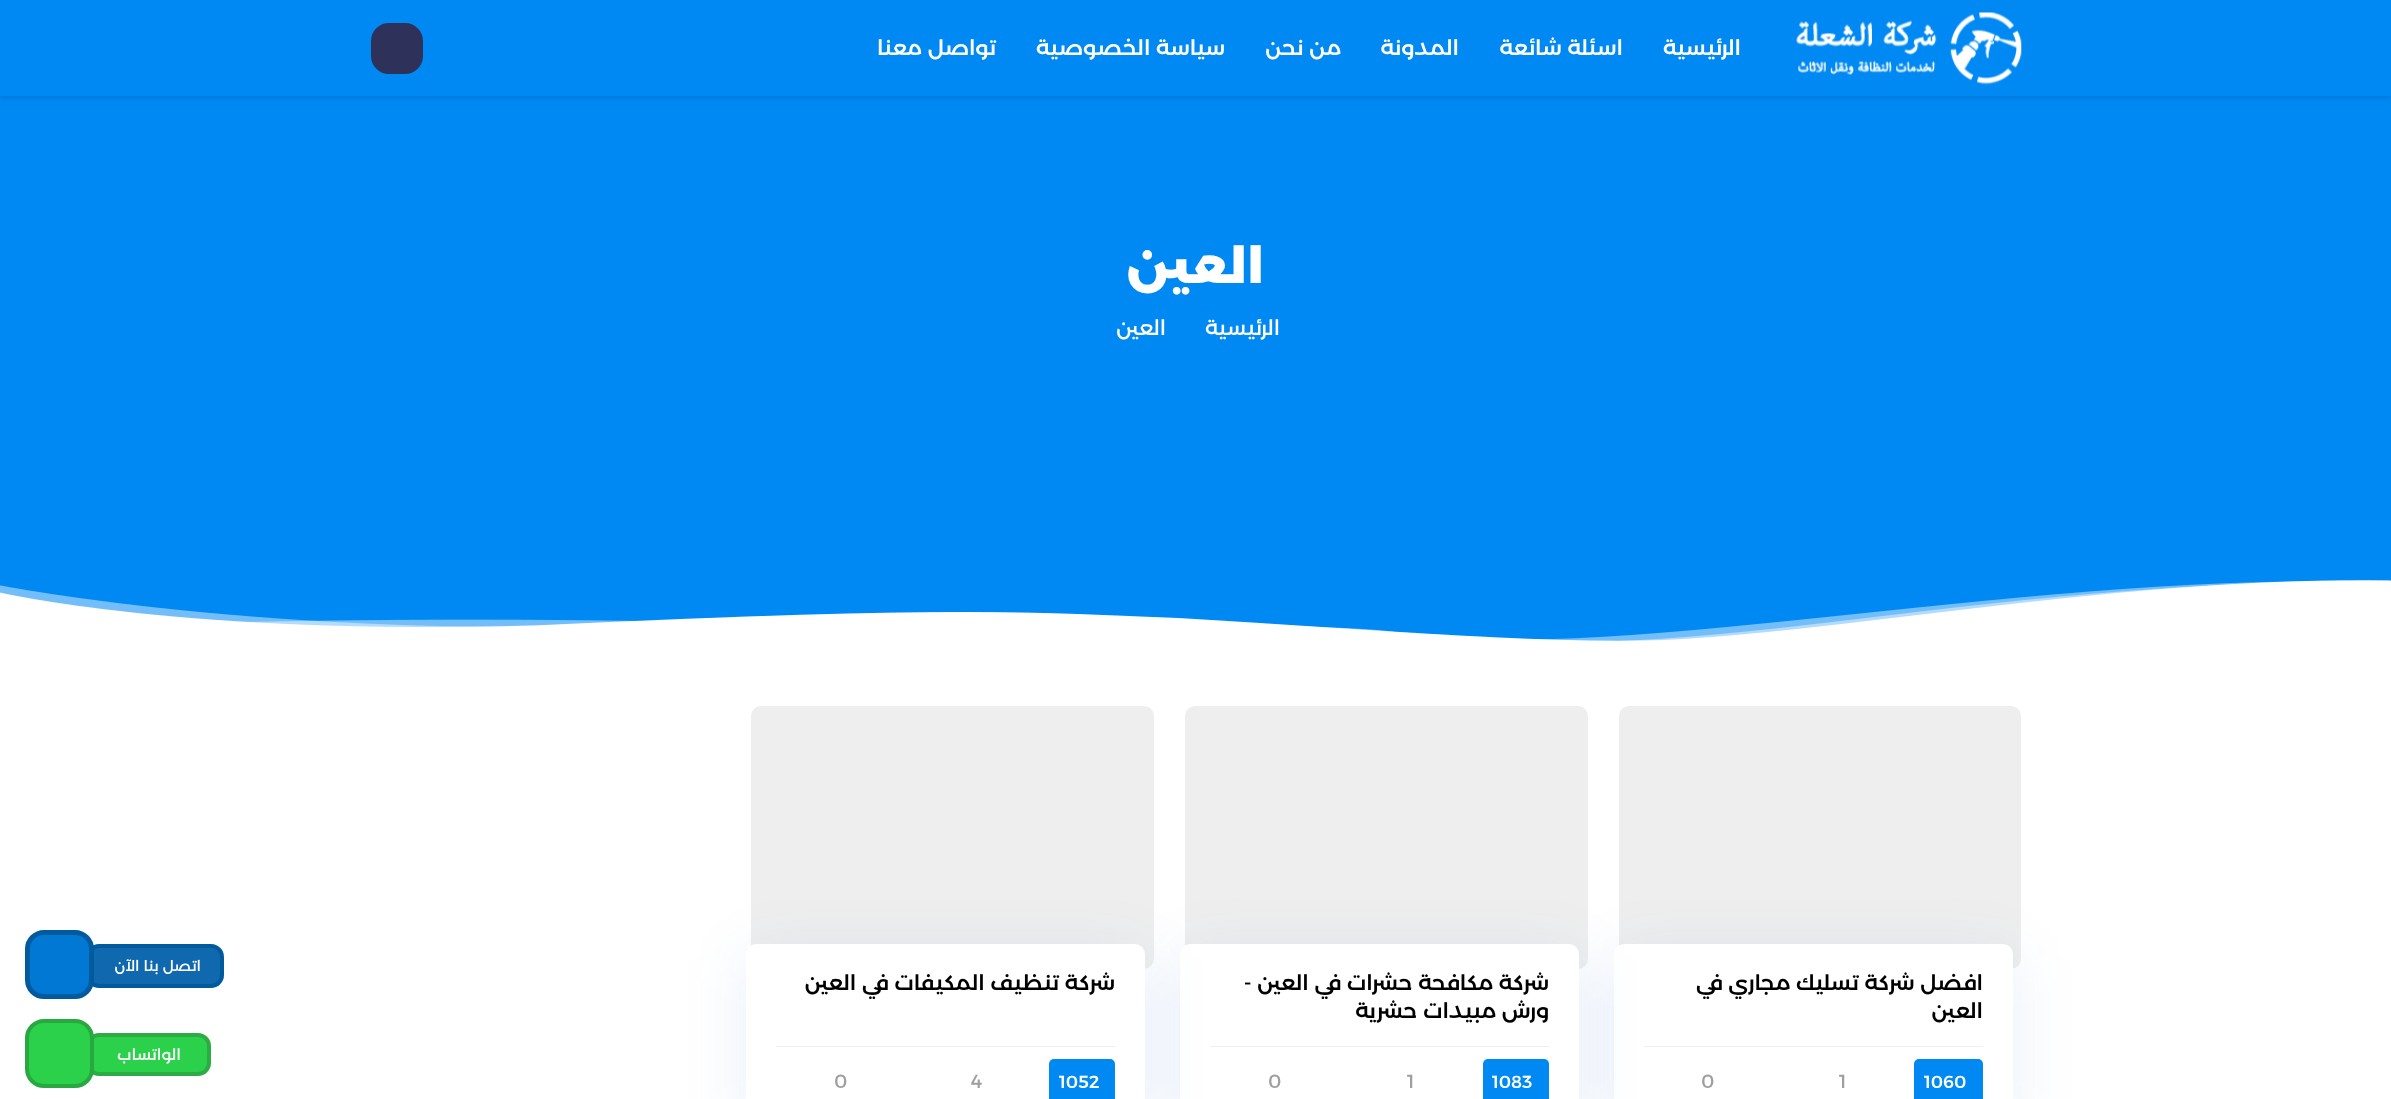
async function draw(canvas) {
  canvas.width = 2391
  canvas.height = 1099
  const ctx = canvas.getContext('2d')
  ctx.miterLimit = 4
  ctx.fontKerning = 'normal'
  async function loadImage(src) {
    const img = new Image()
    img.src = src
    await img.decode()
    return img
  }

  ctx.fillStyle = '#fff'
  ctx.fillRect(0, 0, 2391, 1099)
  ctx.fillStyle = '#0089f3'
  ctx.fillRect(0, 0, 2391, 641)
  ctx.save()
  ctx.beginPath()
  ctx.rect(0, 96, 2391, 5)
  ctx.clip()
  ctx.fillStyle = '#00000021'
  ctx.filter = 'blur(2.5px)'
  ctx.beginPath()
  ctx.rect(0, 1, 2391, 97)
  ctx.fill()
  ctx.filter = 'none'
  ctx.restore()
  ctx.drawImage(await loadImage('image0.png'), 1796, 12, 226, 73)
  ctx.direction = 'rtl'
  ctx.font = '500 21.25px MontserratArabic'
  ctx.fillStyle = '#fff'
  ctx.fillText('الرئيسية', 1741, 55)
  ctx.fillText('اسئلة شائعة', 1623, 55)
  ctx.fillText('المدونة', 1459, 55)
  ctx.fillText('من نحن', 1341, 55)
  ctx.fillText('سياسة الخصوصية', 1225, 55)
  ctx.fillText('تواصل معنا', 996, 55)
  ctx.fillStyle = '#2e325b'
  ctx.beginPath()
  ctx.roundRect(372.5, 24.5, 49, 48, 16.5)
  ctx.fill()
  ctx.strokeStyle = '#2e325b'
  ctx.lineWidth = 3
  ctx.stroke()
  ctx.font = '800 50px MontserratArabic'
  ctx.fillStyle = '#fff'
  ctx.fillText('العين', 1264, 283)
  ctx.font = '21.25px MontserratArabic'
  ctx.fillText('الرئيسية', 1280, 335)
  ctx.fillText('العين', 1166, 335)
  ctx.drawImage(await loadImage('image1.png'), 0, 580, 2391, 70)
  ctx.fillStyle = '#eee'
  ctx.beginPath()
  ctx.roundRect(1619, 706, 402, 263, 10)
  ctx.fill()
  ctx.fillStyle = '#044bc217'
  ctx.filter = 'blur(31px)'
  ctx.beginPath()
  ctx.roundRect(1614, 956, 399, 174, 10)
  ctx.fill()
  ctx.filter = 'none'
  ctx.fillStyle = '#fff'
  ctx.beginPath()
  ctx.roundRect(1614, 944, 399, 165, 10)
  ctx.fill()
  ctx.font = '500 21.25px MontserratArabic'
  ctx.fillStyle = '#000'
  ctx.fillText('افضل شركة تسليك مجاري في', 1983, 990)
  ctx.fillText('العين', 1983, 1018)
  ctx.fillStyle = '#edf0f2'
  ctx.fillRect(1644, 1046, 339, 1)
  ctx.fillStyle = '#0089f3'
  ctx.beginPath()
  ctx.roundRect(1914, 1059, 69, 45, 5)
  ctx.fill()
  ctx.direction = 'ltr'
  ctx.font = '500 17.5px MontserratArabic'
  ctx.fillStyle = '#fff'
  ctx.fillText('1060', 1924, 1088)
  ctx.font = '19px MontserratArabic'
  ctx.fillStyle = '#9e9e9e'
  ctx.fillText('1', 1839, 1088)
  ctx.fillText('0', 1701, 1088)
  ctx.fillStyle = '#eee'
  ctx.beginPath()
  ctx.roundRect(1185, 706, 403, 263, 10)
  ctx.fill()
  ctx.fillStyle = '#044bc217'
  ctx.filter = 'blur(31px)'
  ctx.beginPath()
  ctx.roundRect(1180, 956, 399, 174, 10)
  ctx.fill()
  ctx.filter = 'none'
  ctx.fillStyle = '#fff'
  ctx.beginPath()
  ctx.roundRect(1180, 944, 399, 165, 10)
  ctx.fill()
  ctx.direction = 'rtl'
  ctx.font = '500 21.25px MontserratArabic'
  ctx.fillStyle = '#000'
  ctx.fillText('شركة مكافحة حشرات في العين -', 1549, 990)
  ctx.fillText('ورش مبيدات حشرية', 1549, 1018)
  ctx.fillStyle = '#edf0f2'
  ctx.fillRect(1210, 1046, 339, 1)
  ctx.fillStyle = '#0089f3'
  ctx.beginPath()
  ctx.roundRect(1483, 1059, 66, 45, 5)
  ctx.fill()
  ctx.direction = 'ltr'
  ctx.font = '500 17.5px MontserratArabic'
  ctx.fillStyle = '#fff'
  ctx.fillText('1083', 1492, 1088)
  ctx.font = '19px MontserratArabic'
  ctx.fillStyle = '#9e9e9e'
  ctx.fillText('1', 1407, 1088)
  ctx.fillText('0', 1268, 1088)
  ctx.fillStyle = '#eee'
  ctx.beginPath()
  ctx.roundRect(751, 706, 403, 263, 10)
  ctx.fill()
  ctx.fillStyle = '#044bc217'
  ctx.filter = 'blur(31px)'
  ctx.beginPath()
  ctx.roundRect(746, 956, 399, 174, 10)
  ctx.fill()
  ctx.filter = 'none'
  ctx.fillStyle = '#fff'
  ctx.beginPath()
  ctx.roundRect(746, 944, 399, 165, 10)
  ctx.fill()
  ctx.direction = 'rtl'
  ctx.font = '500 21.25px MontserratArabic'
  ctx.fillStyle = '#000'
  ctx.fillText('شركة تنظيف المكيفات في العين', 1115, 990)
  ctx.fillStyle = '#edf0f2'
  ctx.fillRect(776, 1046, 339, 1)
  ctx.fillStyle = '#0089f3'
  ctx.beginPath()
  ctx.roundRect(1049, 1059, 66, 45, 5)
  ctx.fill()
  ctx.direction = 'ltr'
  ctx.font = '500 17.5px MontserratArabic'
  ctx.fillStyle = '#fff'
  ctx.fillText('1052', 1059, 1088)
  ctx.font = '19px MontserratArabic'
  ctx.fillStyle = '#9e9e9e'
  ctx.fillText('4', 971, 1088)
  ctx.fillText('0', 834, 1088)
  ctx.fillStyle = '#1068ae'
  ctx.beginPath()
  ctx.roundRect(88, 946, 134, 40, 11)
  ctx.fill()
  ctx.strokeStyle = '#005a9e'
  ctx.lineWidth = 4
  ctx.stroke()
  ctx.direction = 'rtl'
  ctx.font = '15px MontserratArabic'
  ctx.fillStyle = '#fff'
  ctx.fillText('اتصل بنا الآن', 201, 971)
  ctx.fillStyle = '#0078d4'
  ctx.beginPath()
  ctx.roundRect(27.5, 932.5, 64, 64, 16.5)
  ctx.fill()
  ctx.lineWidth = 5
  ctx.stroke()
  ctx.fillStyle = '#2bd14b'
  ctx.beginPath()
  ctx.roundRect(88, 1035, 121, 39, 11)
  ctx.fill()
  ctx.strokeStyle = '#2dac46'
  ctx.lineWidth = 4
  ctx.stroke()
  ctx.font = '16px MontserratArabic'
  ctx.fillStyle = '#fff'
  ctx.fillText('الواتساب', 181, 1060)
  ctx.fillStyle = '#2bd14b'
  ctx.beginPath()
  ctx.roundRect(27, 1021, 65, 65, 17)
  ctx.fill()
  ctx.strokeStyle = '#29a842'
  ctx.stroke()
}

draw(document.querySelector('canvas'))
